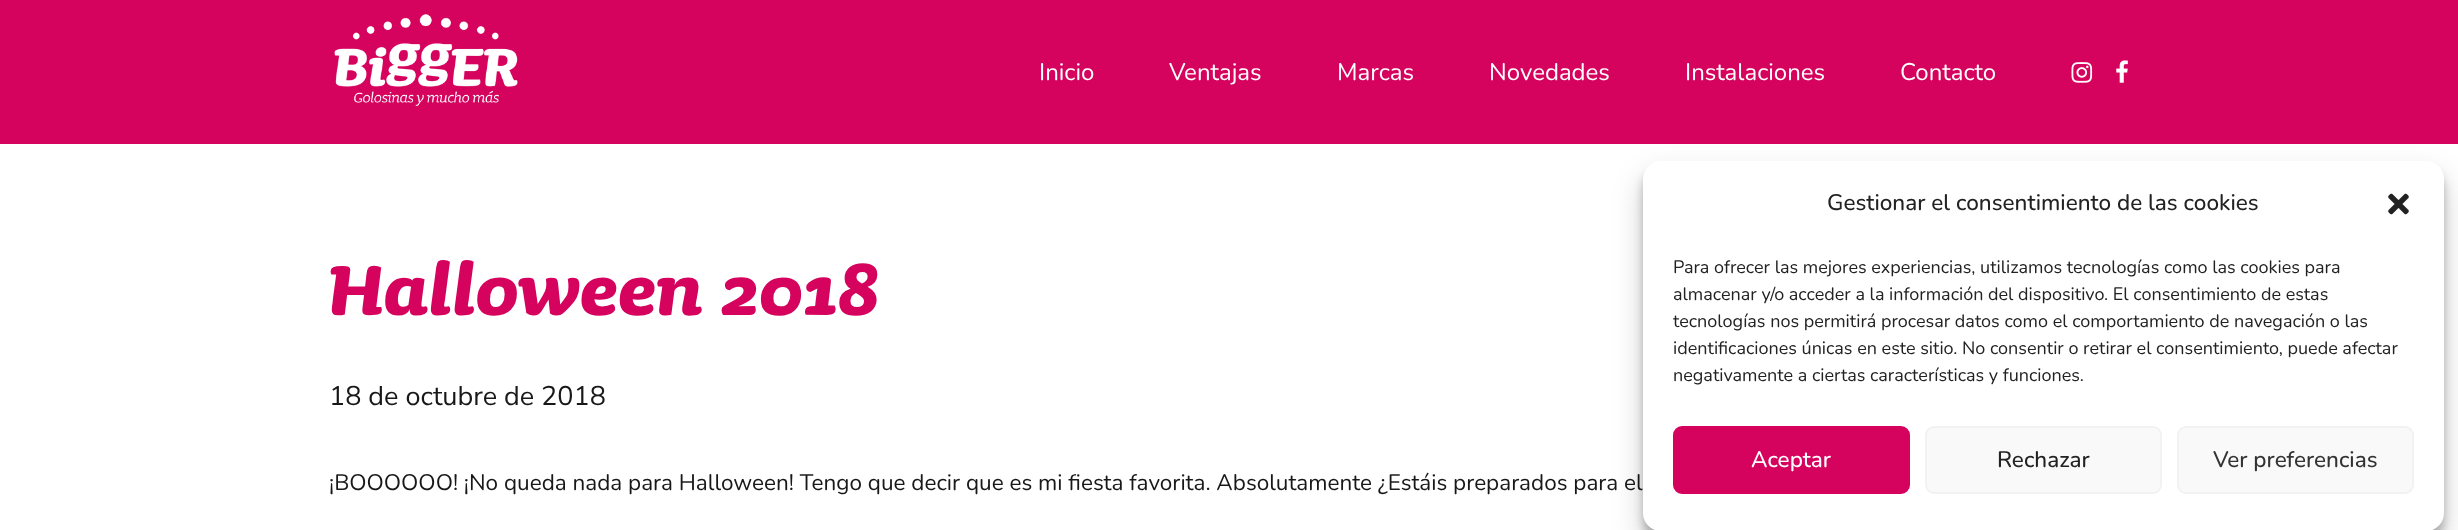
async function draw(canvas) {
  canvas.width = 2458
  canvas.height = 530
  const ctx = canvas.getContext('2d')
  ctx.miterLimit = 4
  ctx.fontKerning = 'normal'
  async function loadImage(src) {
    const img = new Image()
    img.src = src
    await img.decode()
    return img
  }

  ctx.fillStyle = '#fff'
  ctx.fillRect(0, 0, 2458, 530)
  ctx.fillStyle = '#00000030'
  ctx.filter = 'blur(15px)'
  ctx.beginPath()
  ctx.roundRect(1643, 176, 801, 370, 18)
  ctx.fill()
  ctx.filter = 'none'
  ctx.fillStyle = '#d5035e'
  ctx.fillRect(0, 0, 2458, 144)
  ctx.drawImage(await loadImage('image0.png'), 334, 14, 184, 92)
  ctx.font = '24px Nunito'
  ctx.fillStyle = '#fff'
  ctx.fillText('Inicio', 1039, 80)
  ctx.fillText('Ventajas', 1169, 80)
  ctx.fillText('Marcas', 1337, 80)
  ctx.fillText('Novedades', 1489, 80)
  ctx.fillText('Instalaciones', 1685, 80)
  ctx.fillText('Contacto', 1900, 80)
  ctx.drawImage(await loadImage('image1.png'), 2071, 62, 22, 21)
  ctx.drawImage(await loadImage('image2.png'), 2116, 60, 12, 23)
  ctx.font = 'italic bold 90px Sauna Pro'
  ctx.fillStyle = '#d5035e'
  ctx.fillText('Halloween 2018', 329, 315)
  ctx.font = '27px Nunito Sans'
  ctx.fillStyle = '#181818'
  ctx.fillText('18 de octubre de 2018', 329, 405)
  ctx.font = '22.5px Nunito'
  ctx.fillText('¡BOOOOOO! ¡No queda nada para Halloween! Tengo que decir que es mi fiesta favorita. Absolutamente ¿Estáis preparados para el', 329, 490)
  ctx.fillStyle = '#0000003b'
  ctx.filter = 'blur(4.5px)'
  ctx.beginPath()
  ctx.roundRect(1643, 170, 801, 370, 18)
  ctx.fill()
  ctx.filter = 'none'
  ctx.fillStyle = '#fff'
  ctx.beginPath()
  ctx.roundRect(1643, 161, 801, 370, 18)
  ctx.fill()
  ctx.font = '500 22.5px Nunito'
  ctx.fillStyle = '#222'
  ctx.fillText('Gestionar el consentimiento de las cookies', 1827, 210)
  ctx.drawImage(await loadImage('image3.png'), 2388, 193, 21, 22)
  ctx.font = '18px Nunito'
  ctx.fillText('Para ofrecer las mejores experiencias, utilizamos tecnologías como las cookies para', 1673, 273)
  ctx.fillText('almacenar y/o acceder a la información del dispositivo. El consentimiento de estas', 1673, 300)
  ctx.fillText('tecnologías nos permitirá procesar datos como el comportamiento de navegación o las', 1673, 327)
  ctx.fillText('identificaciones únicas en este sitio. No consentir o retirar el consentimiento, puede afectar', 1673, 354)
  ctx.fillText('negativamente a ciertas características y funciones.', 1673, 381)
  ctx.fillStyle = '#d5035e'
  ctx.beginPath()
  ctx.roundRect(1674, 427, 235, 66, 8)
  ctx.fill()
  ctx.strokeStyle = '#d5035e'
  ctx.lineWidth = 2
  ctx.stroke()
  ctx.font = '500 22.5px Nunito'
  ctx.fillStyle = '#fff'
  ctx.fillText('Aceptar', 1751, 467)
  ctx.fillStyle = '#f9f9f9'
  ctx.beginPath()
  ctx.roundRect(1926, 427, 235, 66, 8)
  ctx.fill()
  ctx.strokeStyle = '#f2f2f2'
  ctx.stroke()
  ctx.fillStyle = '#222'
  ctx.fillText('Rechazar', 1997, 467)
  ctx.fillStyle = '#f9f9f9'
  ctx.beginPath()
  ctx.roundRect(2178, 427, 235, 66, 8)
  ctx.fill()
  ctx.stroke()
  ctx.fillStyle = '#333'
  ctx.fillText('Ver preferencias', 2213, 467)
}

draw(document.querySelector('canvas'))
